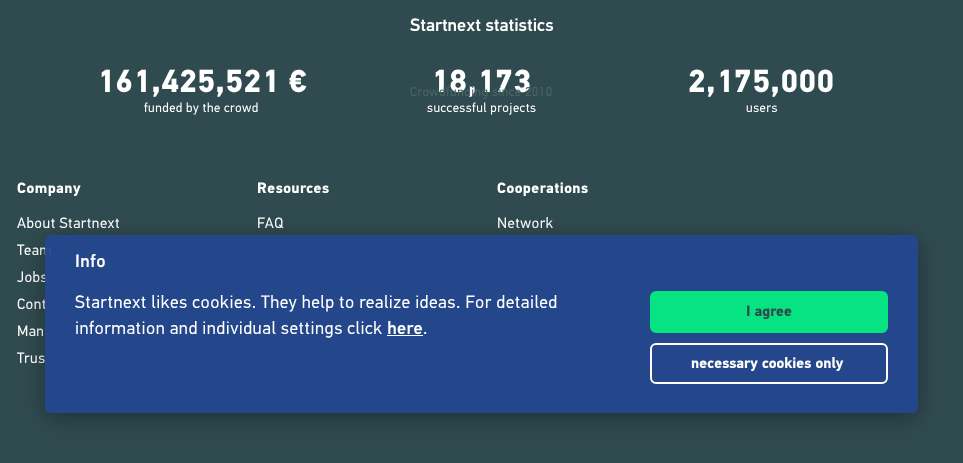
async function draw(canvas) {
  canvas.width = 963
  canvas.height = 463
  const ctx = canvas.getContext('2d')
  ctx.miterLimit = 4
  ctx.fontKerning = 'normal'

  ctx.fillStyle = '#304b50'
  ctx.fillRect(0, 0, 963, 463)
  ctx.font = '500 18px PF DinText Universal'
  ctx.fillStyle = '#fff'
  ctx.fillText('Startnext statistics', 410, 31)
  ctx.letterSpacing = '0.45px'
  ctx.font = 'bold 32px PF DinText Universal'
  ctx.fillText('161,425,521 €', 97, 92)
  ctx.font = '13px PF DinText Universal'
  ctx.fillText('funded by the crowd', 144, 112)
  ctx.font = 'bold 32px PF DinText Universal'
  ctx.fillText('18,173', 431, 92)
  ctx.font = '13px PF DinText Universal'
  ctx.fillText('successful projects', 427, 112)
  ctx.font = 'bold 32px PF DinText Universal'
  ctx.fillText('2,175,000', 688, 92)
  ctx.font = '13px PF DinText Universal'
  ctx.fillText('users', 746, 112)
  ctx.font = 'bold 15px PF DinText Universal'
  ctx.fillText('Company', 17, 193)
  ctx.font = '15px PF DinText Universal'
  ctx.fillText('About Startnext', 17, 228)
  ctx.fillText('Team', 17, 255)
  ctx.fillText('Jobs', 17, 282)
  ctx.fillText('Cont', 17, 309)
  ctx.fillText('Man', 17, 336)
  ctx.fillText('Trus', 17, 363)
  ctx.font = 'bold 15px PF DinText Universal'
  ctx.fillText('Resources', 257, 193)
  ctx.font = '15px PF DinText Universal'
  ctx.fillText('FAQ', 257, 228)
  ctx.font = 'bold 15px PF DinText Universal'
  ctx.fillText('Cooperations', 497, 193)
  ctx.font = '15px PF DinText Universal'
  ctx.fillText('Network', 497, 228)
  ctx.font = '13px PF DinText Universal'
  ctx.fillStyle = '#4c6368'
  ctx.fillText('Crowdfunding since 2010', 410, 96)
  ctx.save()
  ctx.beginPath()
  ctx.moveTo(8, 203)
  ctx.lineTo(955, 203)
  ctx.lineTo(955, 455)
  ctx.lineTo(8, 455)
  ctx.closePath()
  ctx.moveTo(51, 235)
  ctx.lineTo(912, 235)
  ctx.bezierCurveTo(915.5, 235, 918, 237.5, 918, 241)
  ctx.lineTo(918, 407)
  ctx.bezierCurveTo(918, 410.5, 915.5, 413, 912, 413)
  ctx.lineTo(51, 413)
  ctx.bezierCurveTo(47.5, 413, 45, 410.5, 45, 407)
  ctx.lineTo(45, 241)
  ctx.bezierCurveTo(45, 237.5, 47.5, 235, 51, 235)
  ctx.closePath()
  ctx.clip('evenodd')
  ctx.fillStyle = '#00000059'
  ctx.filter = 'blur(12px)'
  ctx.beginPath()
  ctx.roundRect(45, 240, 873, 178, 6)
  ctx.fill()
  ctx.filter = 'none'
  ctx.restore()
  ctx.fillStyle = '#24468df2'
  ctx.beginPath()
  ctx.roundRect(45, 235, 873, 178, 6)
  ctx.fill()
  ctx.font = '500 18px PF DinText Universal'
  ctx.fillStyle = '#fff'
  ctx.fillText('Info', 75, 267)
  ctx.font = '18px PF DinText Universal'
  ctx.fillText('Startnext likes cookies. They help to realize ideas. For detailed', 75, 308)
  ctx.fillText('information and individual settings click', 75, 334)
  ctx.font = '500 18px PF DinText Universal'
  ctx.fillText('here', 387, 334)
  ctx.fillRect(387, 335, 36, 1)
  ctx.font = '18px PF DinText Universal'
  ctx.fillText('.', 423, 334)
  ctx.fillStyle = '#06e481'
  ctx.beginPath()
  ctx.roundRect(651, 292, 236, 40, 5)
  ctx.fill()
  ctx.strokeStyle = '#06e481'
  ctx.lineWidth = 2
  ctx.stroke()
  ctx.letterSpacing = '0px'
  ctx.font = 'bold 15px PF DinText Universal'
  ctx.fillStyle = '#304b50'
  ctx.fillText('I agree', 746, 316)
  ctx.beginPath()
  ctx.roundRect(651, 344, 236, 39, 5)
  ctx.strokeStyle = '#fff'
  ctx.stroke()
  ctx.fillStyle = '#fff'
  ctx.fillText('necessary cookies only', 691, 368)
}

draw(document.querySelector('canvas'))
